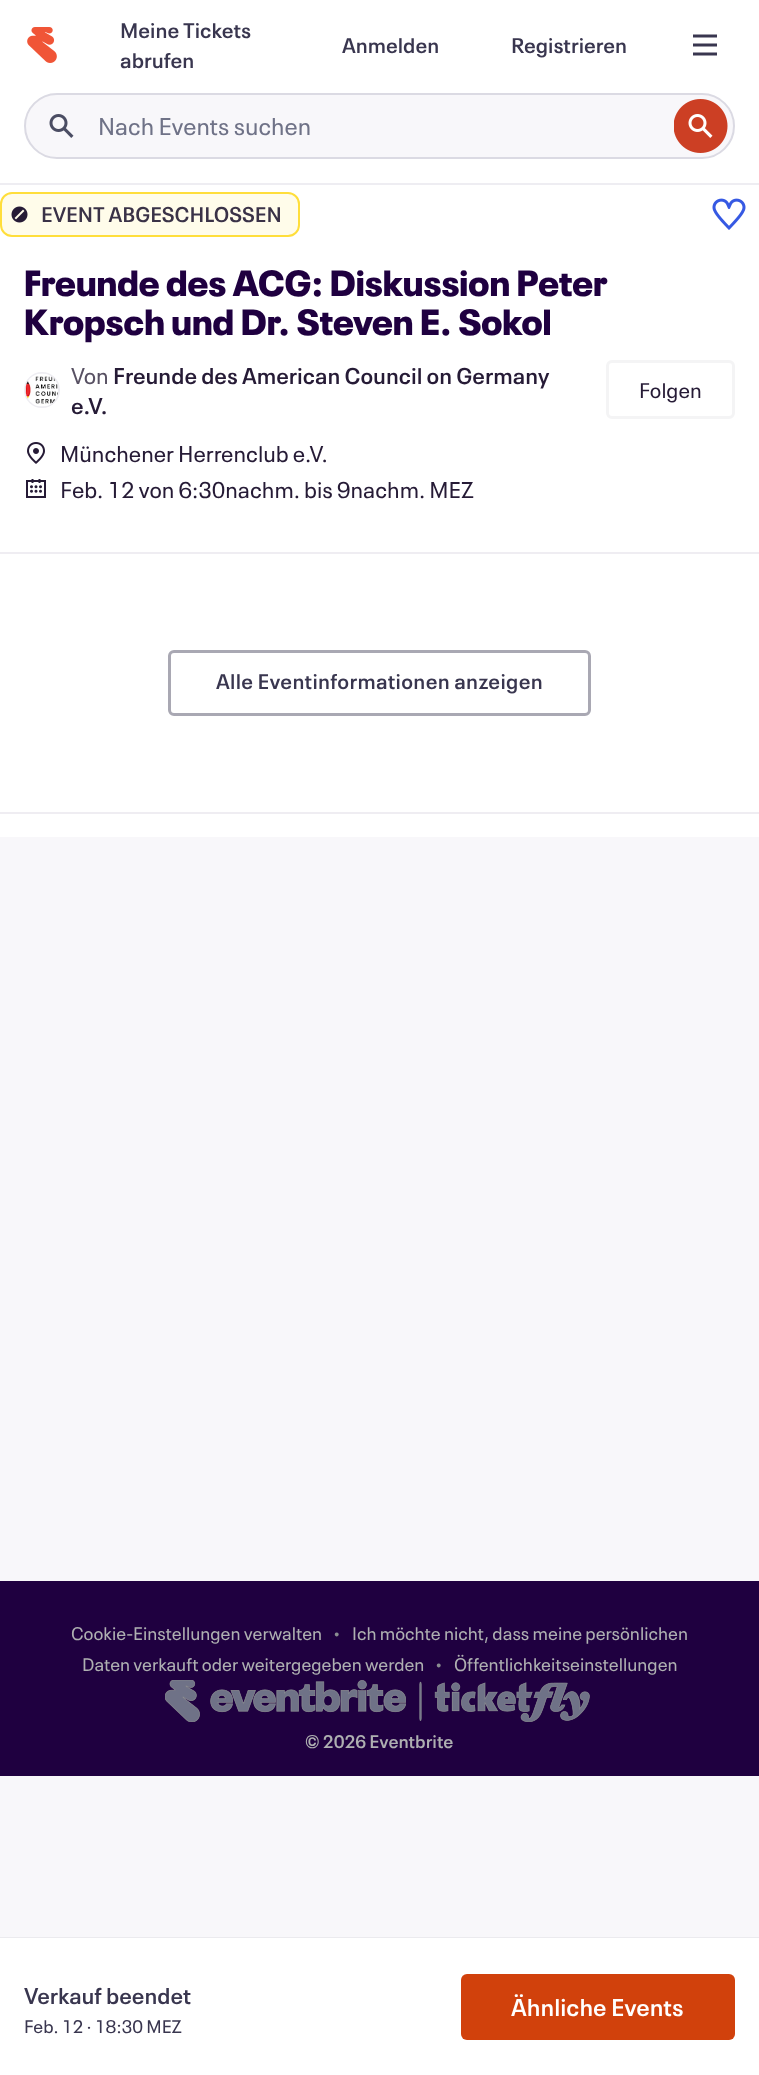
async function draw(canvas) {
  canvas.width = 759
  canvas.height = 2075
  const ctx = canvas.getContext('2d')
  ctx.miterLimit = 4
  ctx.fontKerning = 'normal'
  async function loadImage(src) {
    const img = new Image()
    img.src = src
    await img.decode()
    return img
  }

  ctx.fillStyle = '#f8f7fa'
  ctx.fillRect(0, 0, 759, 2075)
  ctx.fillStyle = '#fff'
  ctx.fillRect(0, 0, 759, 183)
  ctx.fillStyle = '#eeedf2'
  ctx.fillRect(0, 183, 759, 2)
  ctx.drawImage(await loadImage('image0.png'), 27, 27, 30, 36)
  ctx.font = '600 21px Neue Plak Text'
  ctx.fillStyle = '#39364f'
  ctx.fillText('Meine Tickets', 120, 38)
  ctx.fillText('abrufen', 120, 68)
  ctx.fillText('Anmelden', 342, 53)
  ctx.fillText('Registrieren', 511, 53)
  ctx.drawImage(await loadImage('image1.png'), 693, 34, 24, 22)
  ctx.fillStyle = '#f8f7fa'
  ctx.beginPath()
  ctx.roundRect(25, 94, 709, 64, 32)
  ctx.fill()
  ctx.strokeStyle = '#dbdae3'
  ctx.lineWidth = 2
  ctx.stroke()
  ctx.drawImage(await loadImage('image2.png'), 49, 114, 25, 24)
  ctx.font = '24px Neue Plak Text'
  ctx.fillStyle = '#6f7287'
  ctx.fillText('Nach Events suchen', 98, 135)
  ctx.drawImage(await loadImage('image3.png'), 674, 99, 54, 54)
  ctx.fillStyle = '#fff'
  ctx.fillRect(0, 185, 759, 652)
  ctx.fillStyle = '#fffcea'
  ctx.beginPath()
  ctx.roundRect(1, 193, 298, 43, 11)
  ctx.fill()
  ctx.strokeStyle = '#ffde3b'
  ctx.stroke()
  ctx.drawImage(await loadImage('image4.png'), 11, 206, 17, 17)
  ctx.font = '600 21px Neue Plak Text'
  ctx.fillStyle = '#3a3247'
  ctx.fillText('EVENT ABGESCHLOSSEN', 41, 222)
  ctx.drawImage(await loadImage('image5.png'), 712, 198, 34, 32)
  ctx.font = '900 36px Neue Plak'
  ctx.fillStyle = '#1f0040'
  ctx.fillText('Freunde des ACG: Diskussion Peter', 24, 296)
  ctx.fillText('Kropsch und Dr. Steven E. Sokol', 24, 335)
  ctx.beginPath()
  ctx.arc(42, 390, 17, 0, 2 * Math.PI)
  ctx.strokeStyle = '#eeedf2'
  ctx.stroke()
  ctx.drawImage(await loadImage('image6.png'), 25, 373, 33, 34)
  ctx.font = '22.5px Neue Plak Text'
  ctx.fillStyle = '#585163'
  ctx.fillText('Von', 71, 384)
  ctx.font = '600 22.5px Neue Plak Text'
  ctx.fillStyle = '#261b36'
  ctx.fillText('Freunde des American Council on Germany', 113, 384)
  ctx.fillText('e.V.', 71, 414)
  ctx.beginPath()
  ctx.roundRect(607.5, 361.5, 126, 56, 4.5)
  ctx.strokeStyle = '#f4f4f5'
  ctx.lineWidth = 3
  ctx.stroke()
  ctx.font = '21px Neue Plak Text'
  ctx.fillText('Folgen', 639, 398)
  ctx.drawImage(await loadImage('image7.png'), 27, 442, 18, 22)
  ctx.font = '22.5px Neue Plak Text'
  ctx.fillText('Münchener Herrenclub e.V.', 60, 462)
  ctx.drawImage(await loadImage('image8.png'), 26, 479, 20, 19)
  ctx.font = '22.5px Noto Sans'
  ctx.fillText('F', 60, 498)
  ctx.font = '22.5px Neue Plak Text'
  ctx.fillText('eb. 12 von 6:30nachm. bis 9nachm. MEZ', 72, 498)
  ctx.fillStyle = '#efedf2'
  ctx.fillRect(0, 552, 759, 2)
  ctx.beginPath()
  ctx.roundRect(169.5, 651.5, 420, 63, 4.5)
  ctx.strokeStyle = '#a9a8b3'
  ctx.stroke()
  ctx.letterSpacing = '0.3px'
  ctx.font = '600 21px Neue Plak Text'
  ctx.fillStyle = '#39364f'
  ctx.fillText('Alle Eventinformationen anzeigen', 216, 689)
  ctx.fillStyle = '#efedf2'
  ctx.fillRect(0, 812, 759, 2)
  ctx.strokeStyle = '#ebeaee'
  ctx.lineWidth = 2
  ctx.strokeRect(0, 1938, 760, 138)
  ctx.fillStyle = '#fff'
  ctx.fillRect(0, 1938, 759, 137)
  ctx.letterSpacing = '0px'
  ctx.font = '600 22.5px Neue Plak Text'
  ctx.fillStyle = '#39364f'
  ctx.fillText('Verkauf beendet', 24, 2004)
  ctx.font = '18px Neue Plak Text'
  ctx.fillText('Feb. 12 · 18:30 MEZ', 24, 2033)
  ctx.fillStyle = '#d1410c'
  ctx.beginPath()
  ctx.roundRect(461, 1974, 274, 66, 6)
  ctx.fill()
  ctx.font = '600 24px Neue Plak Text'
  ctx.fillStyle = '#fff'
  ctx.fillText('Ähnliche Events', 511, 2016)
  ctx.fillStyle = '#1f0040'
  ctx.fillRect(0, 1581, 759, 195)
  ctx.font = '18px Neue Plak Text'
  ctx.fillStyle = '#aeafb1'
  ctx.fillText('Cookie-Einstellungen verwalten', 71, 1640)
  ctx.font = '9px Liberation Sans'
  ctx.fillStyle = '#8b8d91'
  ctx.fillText('●', 334, 1637)
  ctx.font = '18px Neue Plak Text'
  ctx.fillStyle = '#aeafb1'
  ctx.fillText('Ich möchte nicht, dass meine persönlichen', 352, 1640)
  ctx.fillText('Daten verkauft oder weitergegeben werden', 82, 1671)
  ctx.font = '9px Liberation Sans'
  ctx.fillStyle = '#8b8d91'
  ctx.fillText('●', 436, 1668)
  ctx.font = '18px Neue Plak Text'
  ctx.fillStyle = '#aeafb1'
  ctx.fillText('Öffentlichkeitseinstellungen', 454, 1671)
  ctx.drawImage(await loadImage('image9.png'), 165, 1680, 425, 42)
  ctx.font = '600 18px Neue Plak Text'
  ctx.fillText('© 2026 Eventbrite', 305, 1748)
}

draw(document.querySelector('canvas'))
